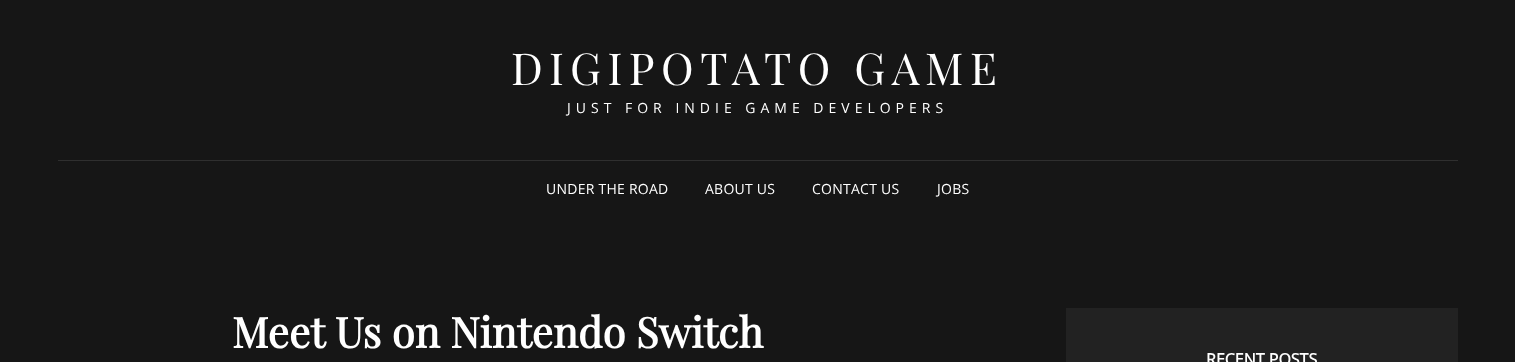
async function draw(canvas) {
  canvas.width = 1515
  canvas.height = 362
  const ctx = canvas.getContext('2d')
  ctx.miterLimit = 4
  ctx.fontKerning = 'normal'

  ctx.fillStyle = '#161616'
  ctx.fillRect(0, 0, 1515, 362)
  ctx.letterSpacing = '6.5px'
  ctx.font = '44px Playfair Display'
  ctx.fillStyle = '#fff'
  ctx.fillText('DIGIPOTATO GAME', 511, 85)
  ctx.letterSpacing = '5px'
  ctx.font = '14px Open Sans'
  ctx.fillText('JUST FOR INDIE GAME DEVELOPERS', 567, 113)
  ctx.fillStyle = '#2f2f2f'
  ctx.fillRect(58, 160, 1400, 1)
  ctx.letterSpacing = '0.25px'
  ctx.fillStyle = '#fff'
  ctx.fillText('UNDER THE ROAD', 546, 194)
  ctx.fillText('ABOUT US', 705, 194)
  ctx.fillText('CONTACT US', 812, 194)
  ctx.fillText('JOBS', 937, 194)
  ctx.letterSpacing = '0px'
  ctx.font = 'bold 42px Playfair Display'
  ctx.fillText('Meet Us on Nintendo Switch', 232, 348)
  ctx.fillStyle = '#222'
  ctx.fillRect(1066, 308, 392, 54)
  ctx.font = 'bold 16px Open Sans'
  ctx.fillStyle = '#fff'
  ctx.fillText('RECENT POSTS', 1206, 365)
}

draw(document.querySelector('canvas'))
